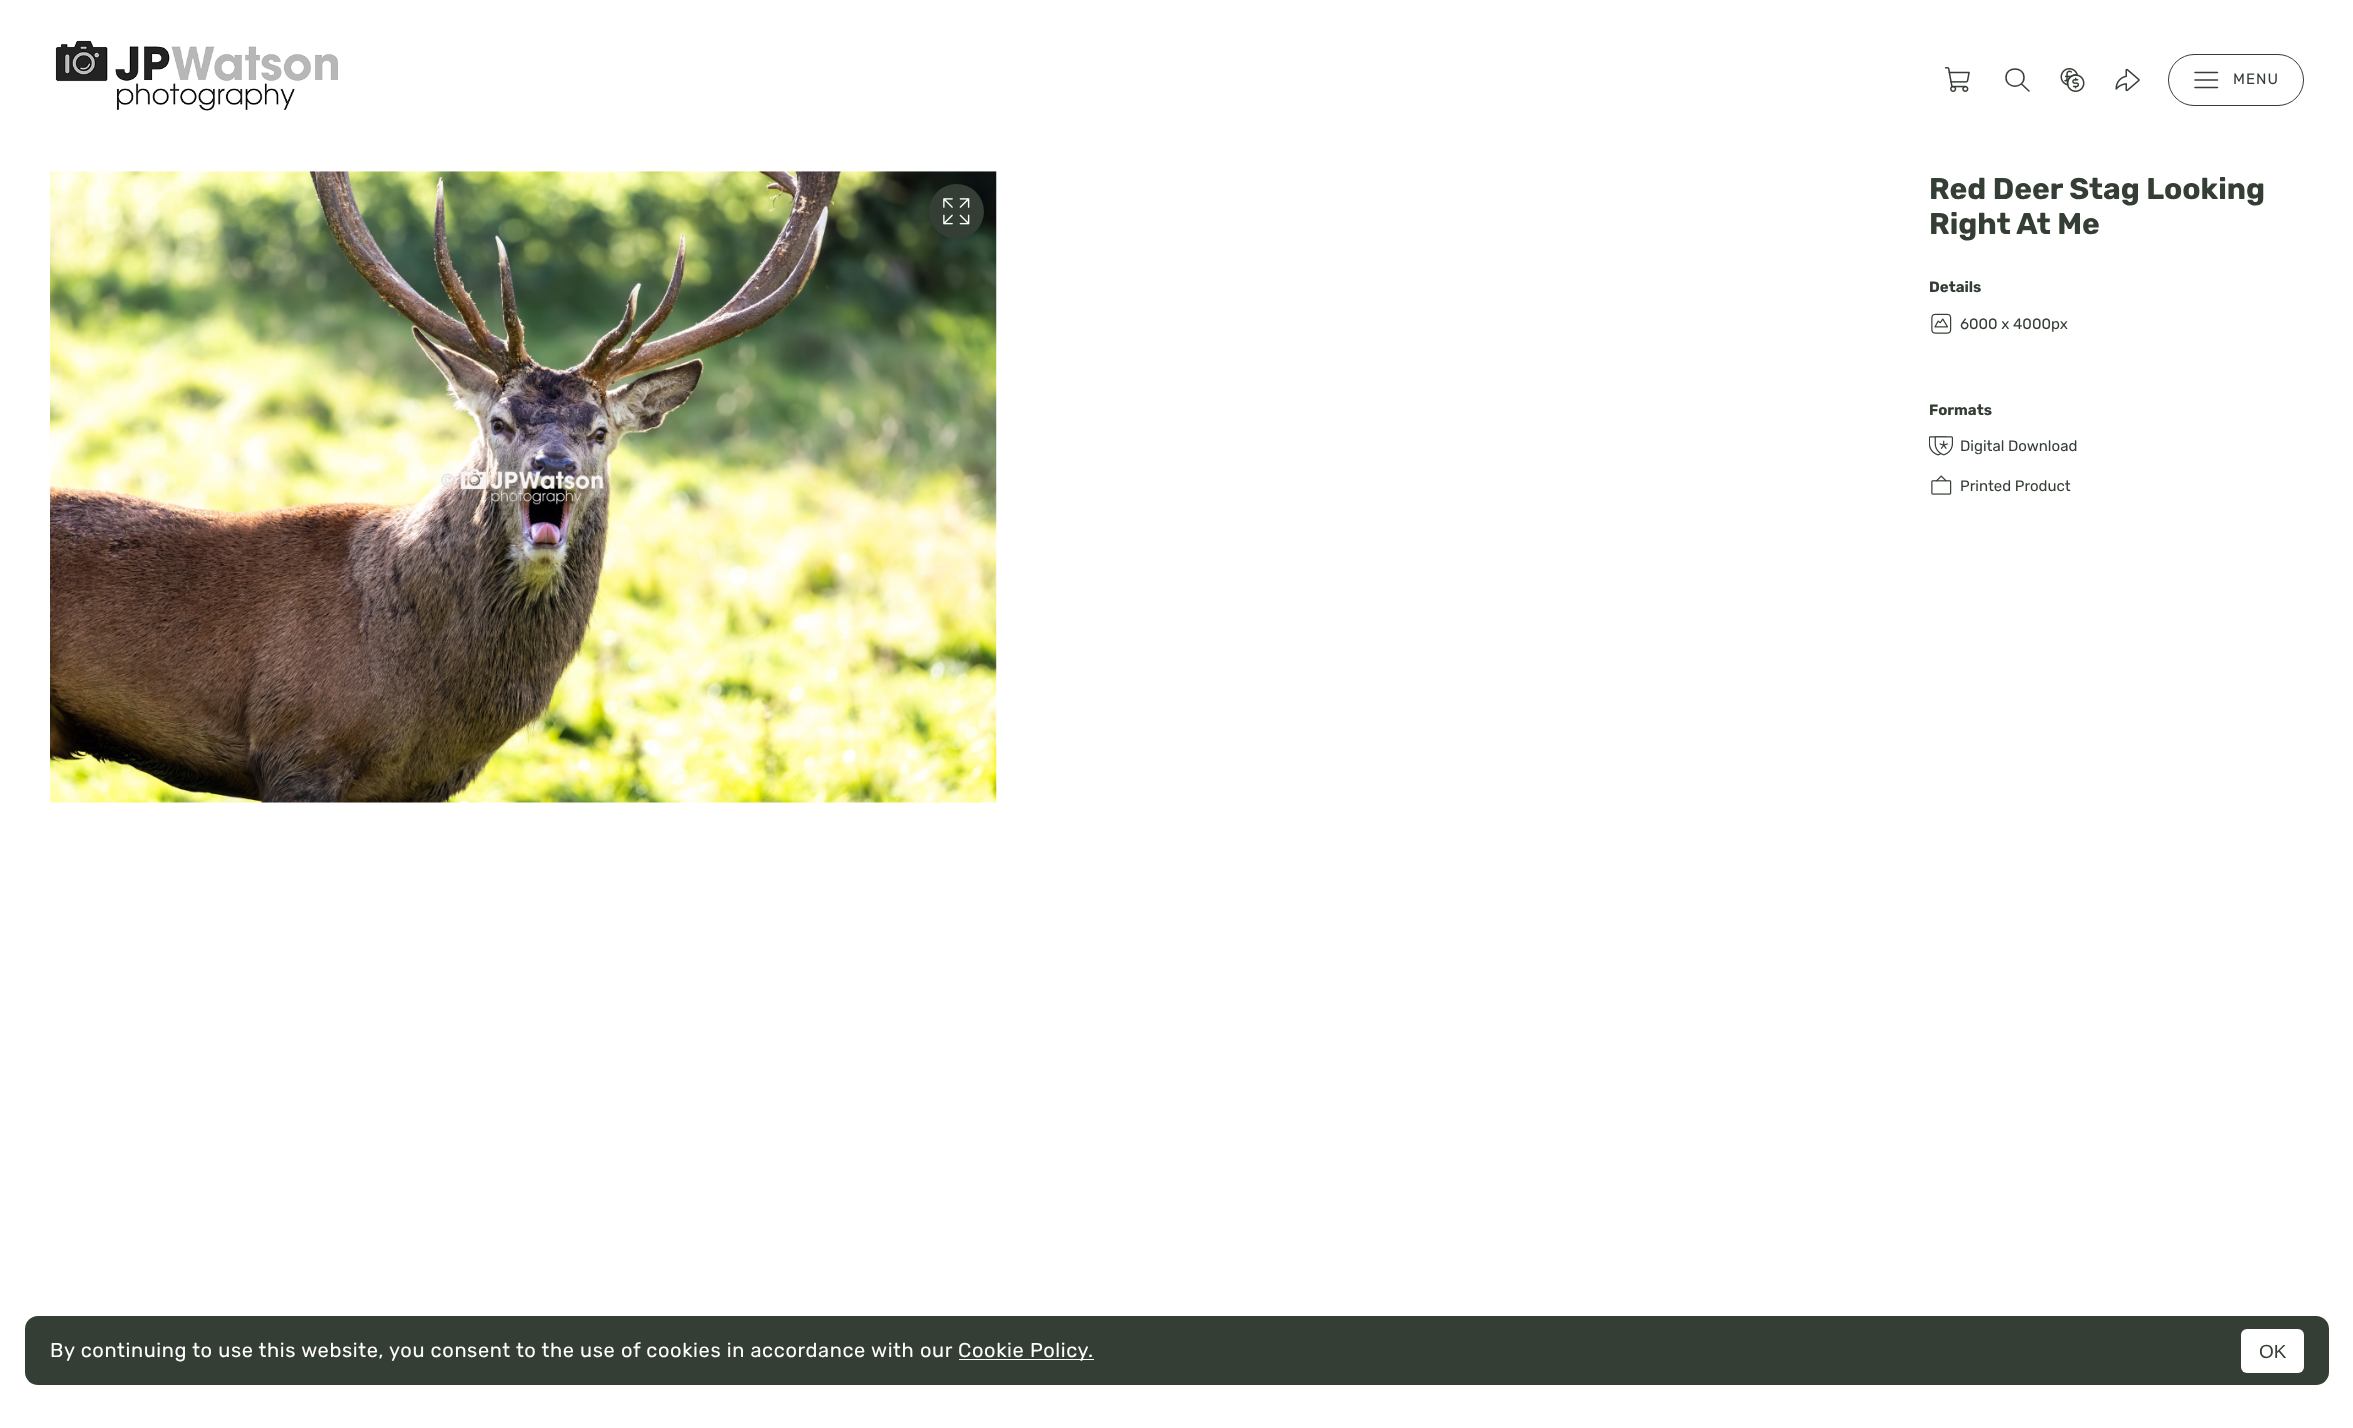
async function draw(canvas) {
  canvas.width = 2353
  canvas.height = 1428
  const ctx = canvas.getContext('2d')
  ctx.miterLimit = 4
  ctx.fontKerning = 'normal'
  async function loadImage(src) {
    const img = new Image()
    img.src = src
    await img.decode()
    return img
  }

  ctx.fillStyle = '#fff'
  ctx.fillRect(0, 0, 2353, 1428)
  ctx.drawImage(await loadImage('image0.png'), 55, 40, 283, 71)
  ctx.drawImage(await loadImage('image1.png'), 1944, 67, 26, 25)
  ctx.beginPath()
  ctx.moveTo(2029, 91)
  ctx.lineTo(2021.5, 84)
  ctx.moveTo(2024, 77.5)
  ctx.bezierCurveTo(2024, 89, 2006, 89, 2006, 77.5)
  ctx.bezierCurveTo(2006, 66, 2024, 66, 2024, 77.5)
  ctx.closePath()
  ctx.strokeStyle = '#343e35'
  ctx.lineWidth = 1.5
  ctx.lineCap = 'round'
  ctx.lineJoin = 'round'
  ctx.stroke()
  ctx.drawImage(await loadImage('image2.png'), 2060, 68, 25, 24)
  ctx.drawImage(await loadImage('image3.png'), 2115, 68, 25, 24)
  ctx.beginPath()
  ctx.roundRect(2168.5, 54.5, 135, 51, 25.5)
  ctx.lineWidth = 1
  ctx.lineJoin = 'miter'
  ctx.stroke()
  ctx.beginPath()
  ctx.moveTo(2195, 80)
  ctx.lineTo(2217.5, 80)
  ctx.moveTo(2195, 72.5)
  ctx.lineTo(2217.5, 72.5)
  ctx.moveTo(2195, 87.5)
  ctx.lineTo(2217.5, 87.5)
  ctx.lineWidth = 1.5
  ctx.lineJoin = 'round'
  ctx.stroke()
  ctx.letterSpacing = '1px'
  ctx.font = '15px Rubik'
  ctx.fillStyle = '#343e35'
  ctx.fillText('MENU', 2233, 84)
  ctx.drawImage(await loadImage('image4.png'), 50, 171, 947, 632)
  ctx.beginPath()
  ctx.arc(956.5, 211.5, 27.5, 0, 2 * Math.PI)
  ctx.fill()
  ctx.drawImage(await loadImage('image5.png'), 943, 198, 27, 27)
  ctx.letterSpacing = '0px'
  ctx.font = 'bold 30px Rubik'
  ctx.fillText('Red Deer Stag Looking', 1929, 199)
  ctx.fillText('Right At Me', 1929, 234)
  ctx.font = 'bold 15px Rubik'
  ctx.fillText('Details', 1929, 292)
  ctx.drawImage(await loadImage('image6.png'), 1931, 313, 21, 21)
  ctx.font = '15px Rubik'
  ctx.fillText('6000 x 4000px', 1960, 329)
  ctx.font = 'bold 15px Rubik'
  ctx.fillText('Formats', 1929, 415)
  ctx.drawImage(await loadImage('image7.png'), 1929, 436, 24, 20)
  ctx.font = '15px Rubik'
  ctx.fillText('Digital Download', 1960, 451)
  ctx.drawImage(await loadImage('image8.png'), 1931, 475, 21, 20)
  ctx.fillText('Printed Product', 1960, 491)
  ctx.beginPath()
  ctx.roundRect(25, 1316, 2304, 69, 13)
  ctx.fill()
  ctx.letterSpacing = '0.62px'
  ctx.font = '20px Rubik'
  ctx.fillStyle = '#fff'
  ctx.fillText('By continuing to use this website, you consent to the use of cookies in accordance with our', 50, 1357)
  ctx.fillRect(959, 1359, 135, 1)
  ctx.fillText('Cookie Policy.', 958, 1357)
  ctx.beginPath()
  ctx.roundRect(2241, 1329, 63, 44, 6)
  ctx.fill()
  ctx.letterSpacing = '0px'
  ctx.font = '19px Liberation Sans'
  ctx.fillStyle = '#343e35'
  ctx.fillText('OK', 2259, 1358)
}

draw(document.querySelector('canvas'))
